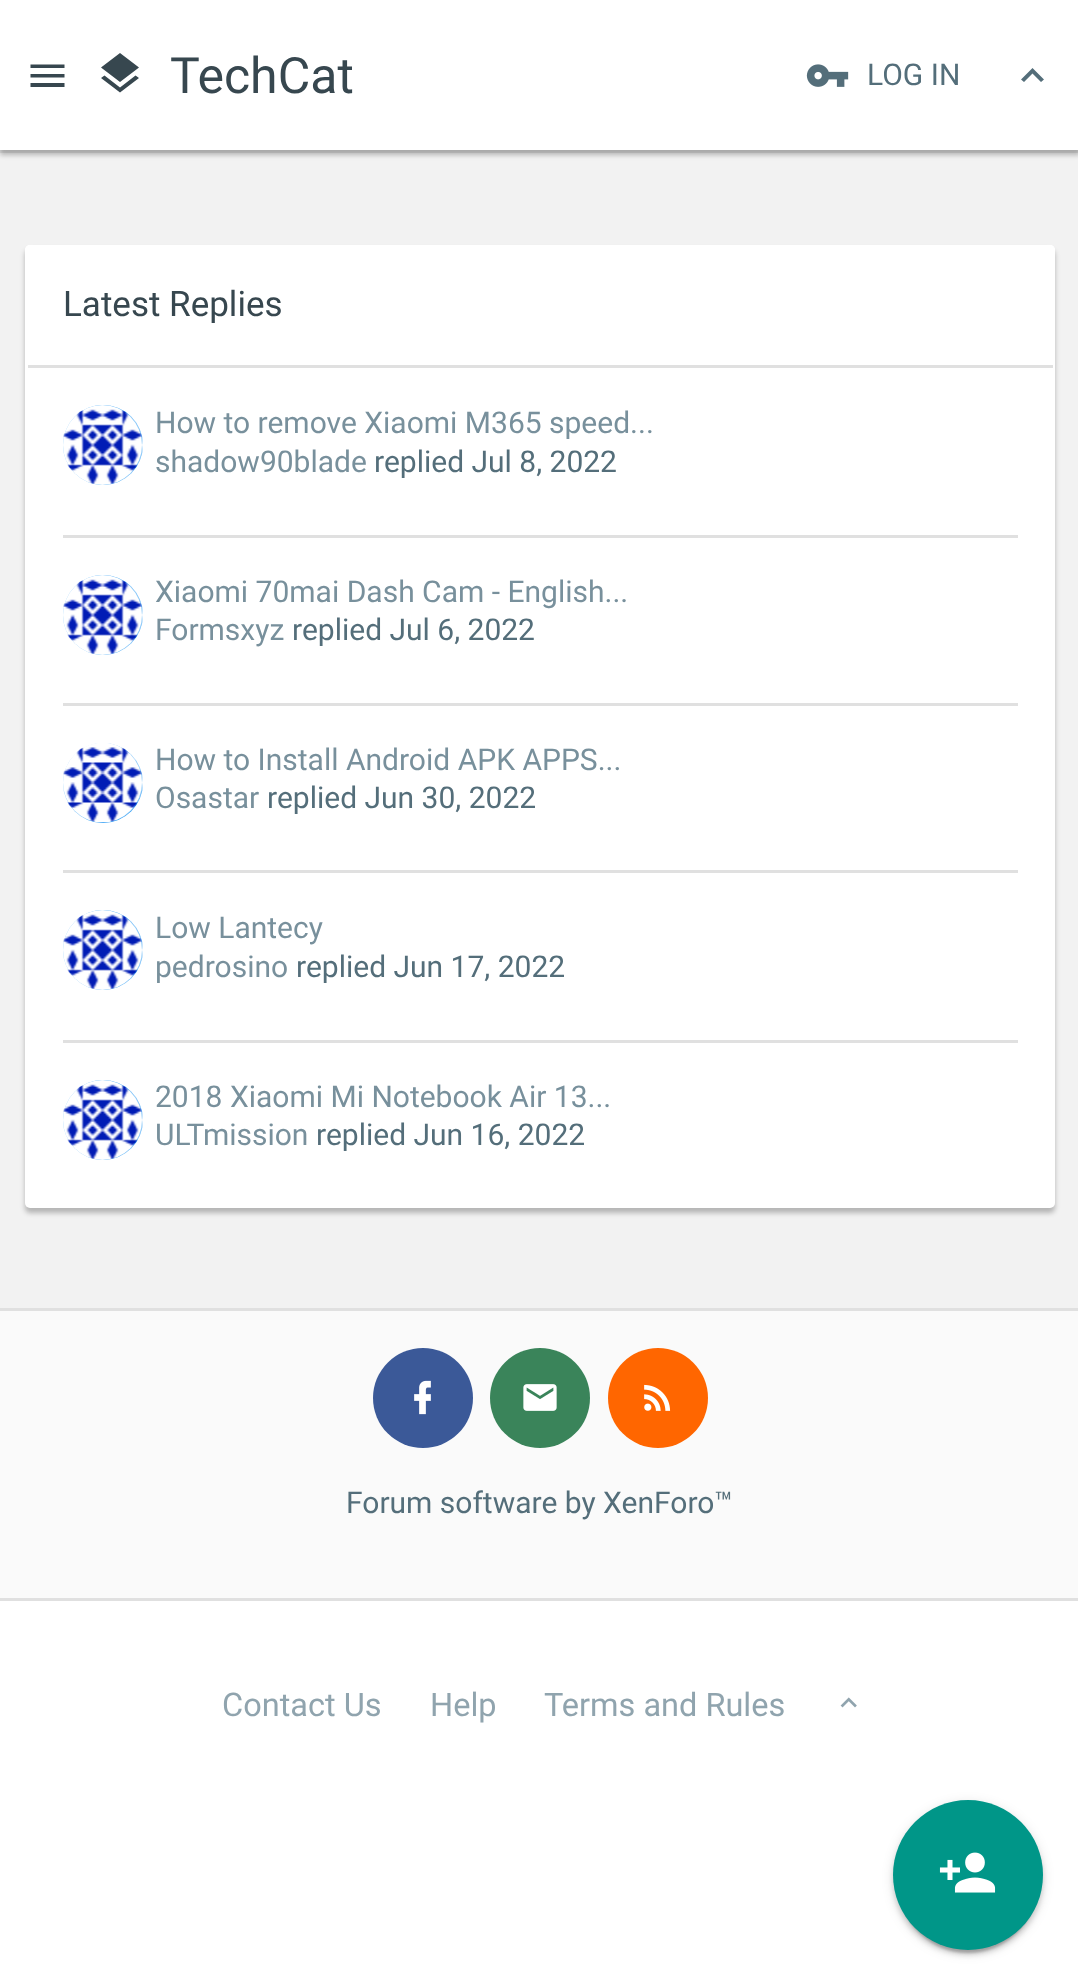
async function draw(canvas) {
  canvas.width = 1078
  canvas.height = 1987
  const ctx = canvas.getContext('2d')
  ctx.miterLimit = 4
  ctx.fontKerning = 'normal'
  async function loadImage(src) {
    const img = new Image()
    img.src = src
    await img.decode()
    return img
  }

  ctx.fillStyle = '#f2f2f2'
  ctx.fillRect(0, 0, 1078, 1987)
  ctx.fillStyle = '#00000040'
  ctx.filter = 'blur(2.5px)'
  ctx.beginPath()
  ctx.rect(0, 5, 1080, 150)
  ctx.fill()
  ctx.filter = 'none'
  ctx.fillStyle = '#00000012'
  ctx.fillRect(0, 150, 1078, 3)
  ctx.fillStyle = '#fff'
  ctx.fillRect(0, 0, 1078, 150)
  ctx.fillStyle = '#37474f'
  ctx.beginPath()
  ctx.moveTo(30.5, 64.5)
  ctx.lineTo(64.5, 64.5)
  ctx.lineTo(64.5, 68)
  ctx.lineTo(30.5, 68)
  ctx.closePath()
  ctx.moveTo(30.5, 74)
  ctx.lineTo(64.5, 74)
  ctx.lineTo(64.5, 77.5)
  ctx.lineTo(30.5, 77.5)
  ctx.closePath()
  ctx.moveTo(30.5, 83)
  ctx.lineTo(64.5, 83)
  ctx.lineTo(64.5, 87)
  ctx.lineTo(30.5, 87)
  ctx.closePath()
  ctx.fill()
  ctx.beginPath()
  ctx.moveTo(120, 82)
  ctx.lineTo(139, 67.5)
  ctx.lineTo(120, 53)
  ctx.lineTo(101, 67.5)
  ctx.closePath()
  ctx.moveTo(120, 87.5)
  ctx.lineTo(104.5, 75.5)
  ctx.lineTo(101, 78)
  ctx.lineTo(120, 92.5)
  ctx.lineTo(139, 78)
  ctx.lineTo(135.5, 75.5)
  ctx.closePath()
  ctx.fill()
  ctx.font = '50px Roboto'
  ctx.fillText('TechCat', 170, 93)
  ctx.drawImage(await loadImage('image0.png'), 806, 64, 43, 23)
  ctx.font = '30px Roboto'
  ctx.fillStyle = '#546e7a'
  ctx.fillText('LOG IN', 867, 85)
  ctx.beginPath()
  ctx.moveTo(1024, 82)
  ctx.lineTo(1032.5, 73.5)
  ctx.lineTo(1041, 82)
  ctx.lineTo(1044, 79.5)
  ctx.lineTo(1032.5, 68)
  ctx.lineTo(1021, 79.5)
  ctx.closePath()
  ctx.fill()
  ctx.fillStyle = '#00000040'
  ctx.filter = 'blur(2.5px)'
  ctx.beginPath()
  ctx.roundRect(25, 250, 1030, 963, 5)
  ctx.fill()
  ctx.filter = 'none'
  ctx.fillStyle = '#fff'
  ctx.beginPath()
  ctx.roundRect(25, 245, 1030, 963, 5)
  ctx.fill()
  ctx.beginPath()
  ctx.roundRect(25, 245, 1030, 123, 5)
  ctx.fill()
  ctx.fillStyle = '#e0e0e0'
  ctx.fillRect(28, 365, 1025, 3)
  ctx.font = '35px Roboto'
  ctx.fillStyle = '#37474f'
  ctx.fillText('Latest Replies', 63, 316)
  ctx.fillStyle = '#e0e0e0'
  ctx.fillRect(63, 535, 955, 3)
  ctx.fillStyle = '#2196f3'
  ctx.beginPath()
  ctx.arc(103, 445, 40, 0, 2 * Math.PI)
  ctx.fill()
  ctx.drawImage(await loadImage('image1.png'), 63, 405, 80, 80)
  ctx.font = '30px Roboto'
  ctx.fillStyle = '#78909c'
  ctx.fillText('How to remove Xiaomi M365 speed...', 155, 433)
  ctx.fillText('shadow90blade', 155, 472)
  ctx.fillStyle = '#546e7a'
  ctx.fillText('replied Jul 8, 2022', 374, 472)
  ctx.fillStyle = '#e0e0e0'
  ctx.fillRect(63, 703, 955, 3)
  ctx.fillStyle = '#2196f3'
  ctx.beginPath()
  ctx.arc(103, 615, 40, 0, 2 * Math.PI)
  ctx.fill()
  ctx.drawImage(await loadImage('image2.png'), 63, 575, 80, 80)
  ctx.fillStyle = '#78909c'
  ctx.fillText('Xiaomi 70mai Dash Cam - English...', 155, 602)
  ctx.fillText('Formsxyz', 155, 640)
  ctx.fillStyle = '#546e7a'
  ctx.fillText('replied Jul 6, 2022', 292, 640)
  ctx.fillStyle = '#e0e0e0'
  ctx.fillRect(63, 870, 955, 3)
  ctx.fillStyle = '#2196f3'
  ctx.beginPath()
  ctx.arc(103, 783, 40, 0, 2 * Math.PI)
  ctx.fill()
  ctx.drawImage(await loadImage('image3.png'), 63, 743, 80, 80)
  ctx.fillStyle = '#78909c'
  ctx.fillText('How to Install Android APK APPS...', 155, 770)
  ctx.fillText('Osastar', 155, 808)
  ctx.fillStyle = '#546e7a'
  ctx.fillText('replied Jun 30, 2022', 267, 808)
  ctx.fillStyle = '#e0e0e0'
  ctx.fillRect(63, 1040, 955, 3)
  ctx.fillStyle = '#2196f3'
  ctx.beginPath()
  ctx.arc(103, 950, 40, 0, 2 * Math.PI)
  ctx.fill()
  ctx.drawImage(await loadImage('image4.png'), 63, 910, 80, 80)
  ctx.fillStyle = '#78909c'
  ctx.fillText('Low Lantecy', 155, 938)
  ctx.fillText('pedrosino', 155, 977)
  ctx.fillStyle = '#546e7a'
  ctx.fillText('replied Jun 17, 2022', 296, 977)
  ctx.fillStyle = '#2196f3'
  ctx.beginPath()
  ctx.arc(103, 1120, 40, 0, 2 * Math.PI)
  ctx.fill()
  ctx.drawImage(await loadImage('image5.png'), 63, 1080, 80, 80)
  ctx.fillStyle = '#78909c'
  ctx.fillText('2018 Xiaomi Mi Notebook Air 13...', 155, 1107)
  ctx.fillText('ULTmission', 155, 1145)
  ctx.fillStyle = '#546e7a'
  ctx.fillText('replied Jun 16, 2022', 316, 1145)
  ctx.fillStyle = '#fafafa'
  ctx.fillRect(0, 1311, 1078, 287)
  ctx.fillStyle = '#e0e0e0'
  ctx.fillRect(0, 1308, 1078, 3)
  ctx.fillStyle = '#3b5998'
  ctx.beginPath()
  ctx.arc(423, 1398, 50, 0, 2 * Math.PI)
  ctx.fill()
  ctx.drawImage(await loadImage('image6.png'), 414, 1380, 17, 35)
  ctx.fillStyle = '#3a845a'
  ctx.beginPath()
  ctx.arc(540, 1398, 50, 0, 2 * Math.PI)
  ctx.fill()
  ctx.drawImage(await loadImage('image7.png'), 523, 1384, 34, 27)
  ctx.fillStyle = '#f60'
  ctx.beginPath()
  ctx.arc(658, 1398, 50, 0, 2 * Math.PI)
  ctx.fill()
  ctx.drawImage(await loadImage('image8.png'), 644, 1384, 27, 27)
  ctx.fillStyle = '#546e7a'
  ctx.fillText('Forum software by XenForo™', 346, 1513)
  ctx.fillStyle = '#e0e0e0'
  ctx.fillRect(0, 1598, 1078, 3)
  ctx.fillStyle = '#fff'
  ctx.fillRect(0, 1601, 1078, 386)
  ctx.font = '32.5px Roboto'
  ctx.fillStyle = '#90a4ae'
  ctx.fillText('Contact Us', 222, 1716)
  ctx.fillText('Help', 430, 1716)
  ctx.fillText('Terms and Rules', 544, 1716)
  ctx.drawImage(await loadImage('image9.png'), 840, 1697, 17, 11)
  ctx.fillStyle = '#0000001f'
  ctx.filter = 'blur(6px)'
  ctx.beginPath()
  ctx.roundRect(893, 1803, 150, 150, 75)
  ctx.fill()
  ctx.filter = 'none'
  ctx.fillStyle = '#00000033'
  ctx.filter = 'blur(1px)'
  ctx.beginPath()
  ctx.roundRect(898, 1813, 140, 140, 70)
  ctx.fill()
  ctx.filter = 'none'
  ctx.fillStyle = '#00000024'
  ctx.filter = 'blur(2.5px)'
  ctx.beginPath()
  ctx.roundRect(893, 1805, 150, 150, 75)
  ctx.fill()
  ctx.filter = 'none'
  ctx.fillStyle = '#009688'
  ctx.beginPath()
  ctx.arc(968, 1875, 75, 0, 2 * Math.PI)
  ctx.fill()
  ctx.drawImage(await loadImage('image10.png'), 939, 1852, 57, 41)
}

draw(document.querySelector('canvas'))
